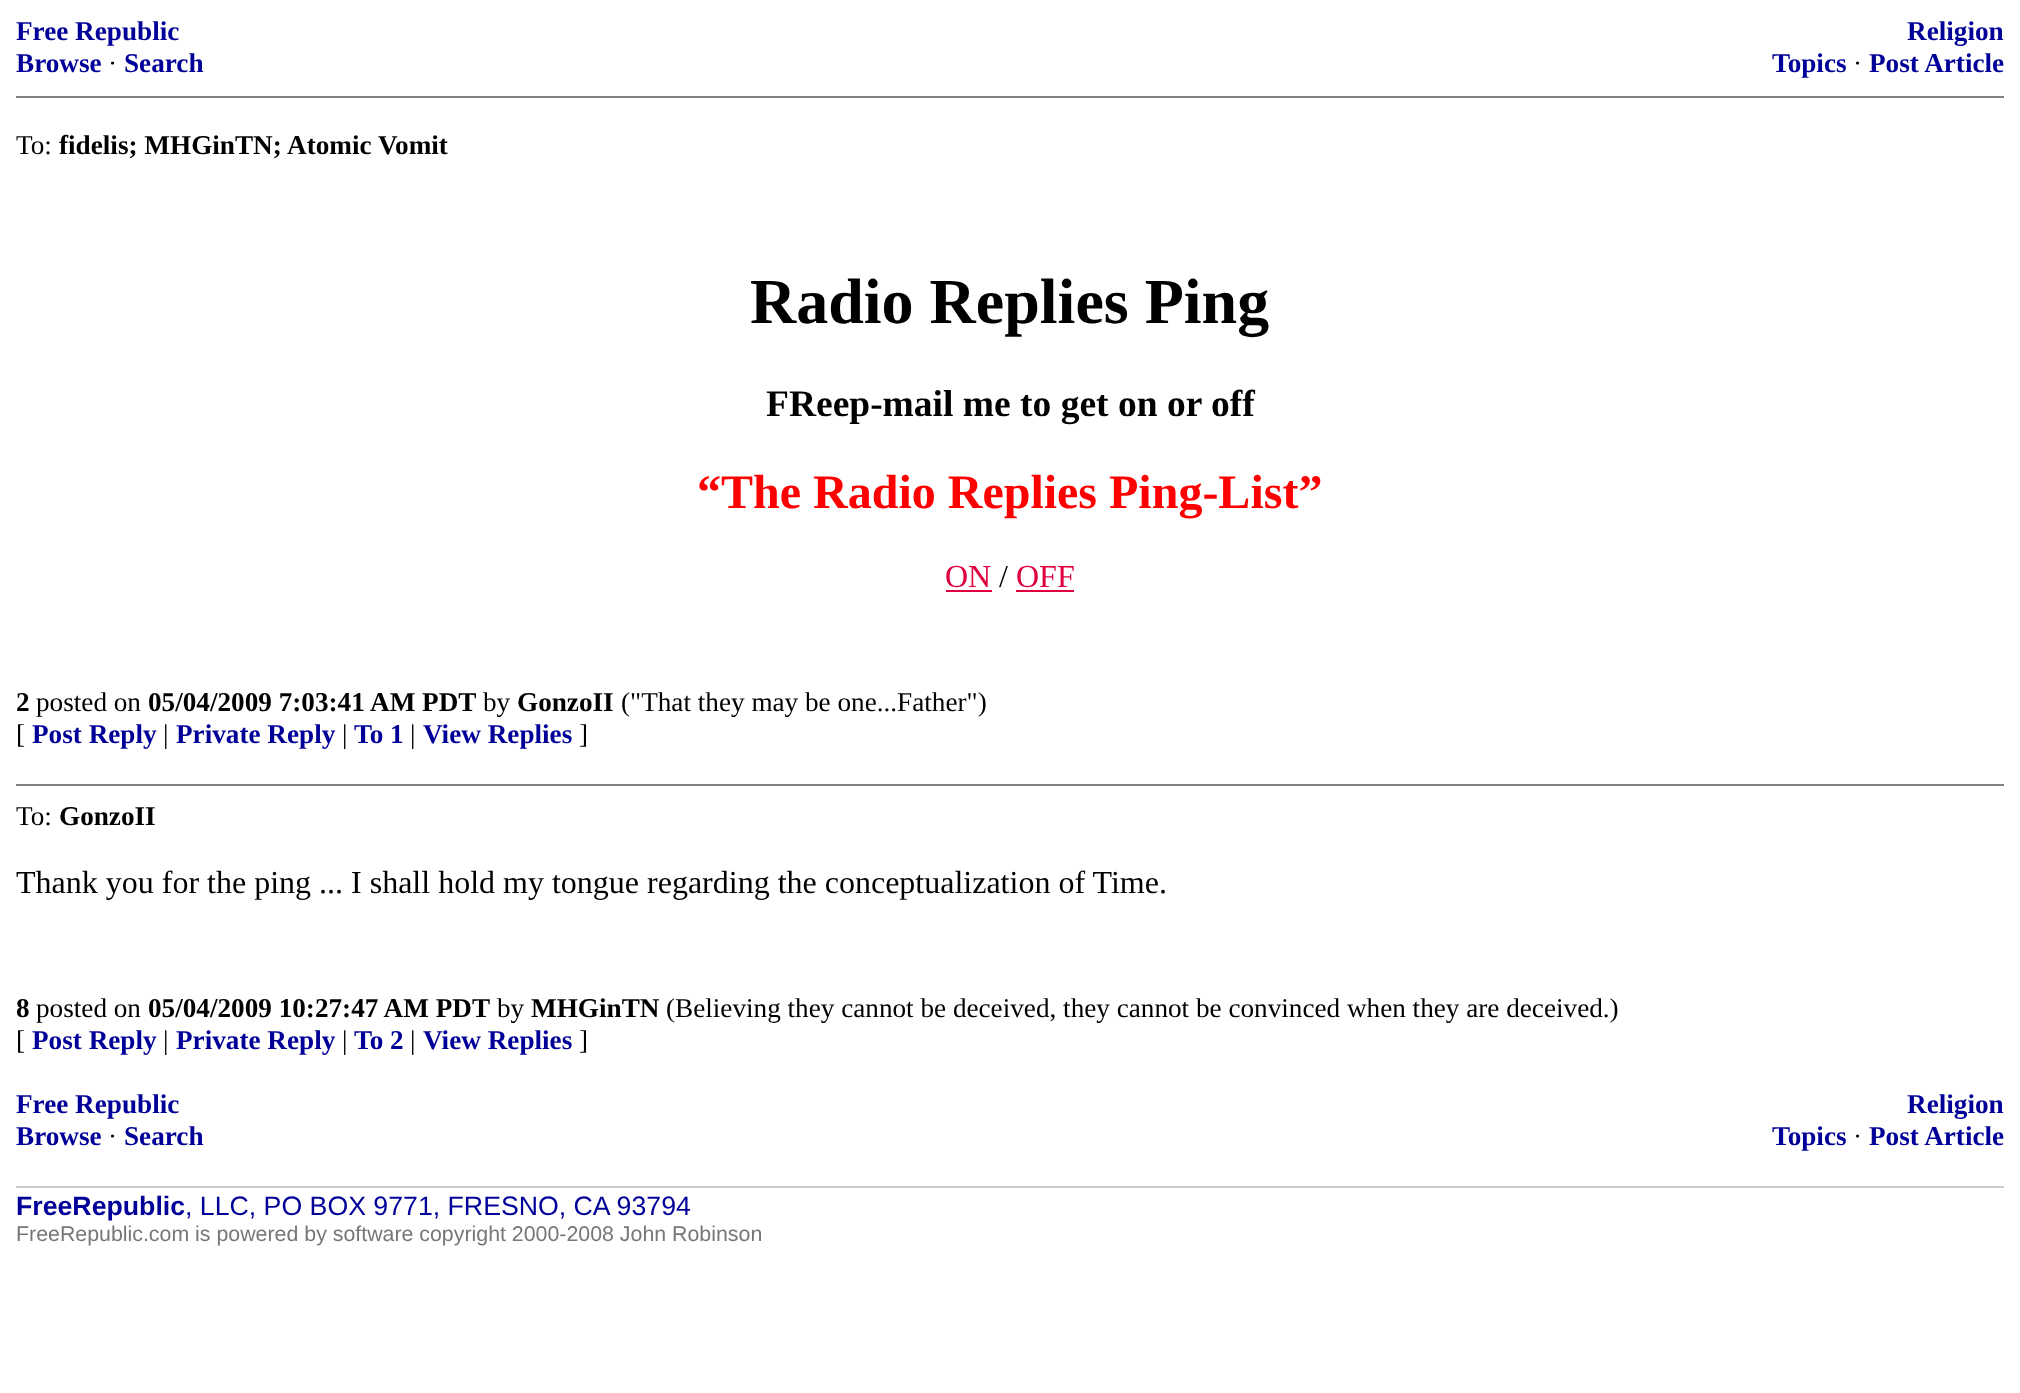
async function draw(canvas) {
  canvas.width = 2020
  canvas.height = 1393
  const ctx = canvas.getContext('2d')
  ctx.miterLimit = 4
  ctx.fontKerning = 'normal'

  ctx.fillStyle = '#fff'
  ctx.fillRect(0, 0, 2020, 1393)
  ctx.font = 'bold 27.2px Liberation Serif'
  ctx.fillStyle = '#009'
  ctx.fillText('Free Republic', 16, 40)
  ctx.fillText('Browse', 16, 72)
  ctx.font = '27.2px Liberation Serif'
  ctx.fillStyle = '#000'
  ctx.fillText('·', 108, 72)
  ctx.font = 'bold 27.2px Liberation Serif'
  ctx.fillStyle = '#009'
  ctx.fillText('Search', 124, 72)
  ctx.fillText('Religion', 1907, 40)
  ctx.fillText('Topics', 1772, 72)
  ctx.font = '27.2px Liberation Serif'
  ctx.fillStyle = '#000'
  ctx.fillText('·', 1853, 72)
  ctx.font = 'bold 27.2px Liberation Serif'
  ctx.fillStyle = '#009'
  ctx.fillText('Post Article', 1869, 72)
  ctx.fillStyle = '#808080'
  ctx.fillRect(16, 96, 1988, 2)
  ctx.font = '27.2px Liberation Serif'
  ctx.fillStyle = '#000'
  ctx.fillText('To:', 16, 154)
  ctx.font = 'bold 27.2px Liberation Serif'
  ctx.fillText('fidelis; MHGinTN; Atomic Vomit', 59, 154)
  ctx.font = 'bold 64px Liberation Serif'
  ctx.fillText('Radio Replies Ping', 750, 323)
  ctx.font = 'bold 37.5px Liberation Serif'
  ctx.fillText('FReep-mail me to get on or off', 766, 416)
  ctx.font = 'bold 48px Liberation Serif'
  ctx.fillStyle = '#f00'
  ctx.fillText('“The Radio Replies Ping-List”', 697, 508)
  ctx.font = '32px Liberation Serif'
  ctx.fillStyle = '#e00040'
  ctx.fillText('ON', 945, 587)
  ctx.fillRect(946, 590, 46, 2)
  ctx.fillStyle = '#000'
  ctx.fillText('/', 999, 587)
  ctx.fillStyle = '#e00040'
  ctx.fillText('OFF', 1016, 587)
  ctx.fillRect(1016, 590, 58, 2)
  ctx.font = 'bold 27.2px Liberation Serif'
  ctx.fillStyle = '#000'
  ctx.fillText('2', 16, 711)
  ctx.font = '27.2px Liberation Serif'
  ctx.fillText('posted on', 36, 711)
  ctx.font = 'bold 27.2px Liberation Serif'
  ctx.fillText('05/04/2009 7:03:41 AM PDT', 148, 711)
  ctx.font = '27.2px Liberation Serif'
  ctx.fillText('by', 483, 711)
  ctx.font = 'bold 27.2px Liberation Serif'
  ctx.fillText('GonzoII', 517, 711)
  ctx.font = '27.2px Liberation Serif'
  ctx.fillText('("That they may be one...Father")', 621, 711)
  ctx.fillText('[', 16, 743)
  ctx.font = 'bold 27.2px Liberation Serif'
  ctx.fillStyle = '#009'
  ctx.fillText('Post Reply', 32, 743)
  ctx.font = '27.2px Liberation Serif'
  ctx.fillStyle = '#000'
  ctx.fillText('|', 163, 743)
  ctx.font = 'bold 27.2px Liberation Serif'
  ctx.fillStyle = '#009'
  ctx.fillText('Private Reply', 176, 743)
  ctx.font = '27.2px Liberation Serif'
  ctx.fillStyle = '#000'
  ctx.fillText('|', 342, 743)
  ctx.font = 'bold 27.2px Liberation Serif'
  ctx.fillStyle = '#009'
  ctx.fillText('To 1', 354, 743)
  ctx.font = '27.2px Liberation Serif'
  ctx.fillStyle = '#000'
  ctx.fillText('|', 410, 743)
  ctx.font = 'bold 27.2px Liberation Serif'
  ctx.fillStyle = '#009'
  ctx.fillText('View Replies', 423, 743)
  ctx.font = '27.2px Liberation Serif'
  ctx.fillStyle = '#000'
  ctx.fillText(']', 579, 743)
  ctx.fillStyle = '#808080'
  ctx.fillRect(16, 784, 1988, 2)
  ctx.fillStyle = '#000'
  ctx.fillText('To:', 16, 825)
  ctx.font = 'bold 27.2px Liberation Serif'
  ctx.fillText('GonzoII', 59, 825)
  ctx.font = '32px Liberation Serif'
  ctx.fillText('Thank you for the ping ... I shall hold my tongue regarding the conceptualization of Time.', 16, 893)
  ctx.font = 'bold 27.2px Liberation Serif'
  ctx.fillText('8', 16, 1017)
  ctx.font = '27.2px Liberation Serif'
  ctx.fillText('posted on', 36, 1017)
  ctx.font = 'bold 27.2px Liberation Serif'
  ctx.fillText('05/04/2009 10:27:47 AM PDT', 148, 1017)
  ctx.font = '27.2px Liberation Serif'
  ctx.fillText('by', 497, 1017)
  ctx.font = 'bold 27.2px Liberation Serif'
  ctx.fillText('MHGinTN', 531, 1017)
  ctx.font = '27.2px Liberation Serif'
  ctx.fillText('(Believing they cannot be deceived, they cannot be convinced when they are deceived.)', 666, 1017)
  ctx.fillText('[', 16, 1049)
  ctx.font = 'bold 27.2px Liberation Serif'
  ctx.fillStyle = '#009'
  ctx.fillText('Post Reply', 32, 1049)
  ctx.font = '27.2px Liberation Serif'
  ctx.fillStyle = '#000'
  ctx.fillText('|', 163, 1049)
  ctx.font = 'bold 27.2px Liberation Serif'
  ctx.fillStyle = '#009'
  ctx.fillText('Private Reply', 176, 1049)
  ctx.font = '27.2px Liberation Serif'
  ctx.fillStyle = '#000'
  ctx.fillText('|', 342, 1049)
  ctx.font = 'bold 27.2px Liberation Serif'
  ctx.fillStyle = '#009'
  ctx.fillText('To 2', 354, 1049)
  ctx.font = '27.2px Liberation Serif'
  ctx.fillStyle = '#000'
  ctx.fillText('|', 410, 1049)
  ctx.font = 'bold 27.2px Liberation Serif'
  ctx.fillStyle = '#009'
  ctx.fillText('View Replies', 423, 1049)
  ctx.font = '27.2px Liberation Serif'
  ctx.fillStyle = '#000'
  ctx.fillText(']', 579, 1049)
  ctx.font = 'bold 27.2px Liberation Serif'
  ctx.fillStyle = '#009'
  ctx.fillText('Free Republic', 16, 1113)
  ctx.fillText('Browse', 16, 1145)
  ctx.font = '27.2px Liberation Serif'
  ctx.fillStyle = '#000'
  ctx.fillText('·', 108, 1145)
  ctx.font = 'bold 27.2px Liberation Serif'
  ctx.fillStyle = '#009'
  ctx.fillText('Search', 124, 1145)
  ctx.fillText('Religion', 1907, 1113)
  ctx.fillText('Topics', 1772, 1145)
  ctx.font = '27.2px Liberation Serif'
  ctx.fillStyle = '#000'
  ctx.fillText('·', 1853, 1145)
  ctx.font = 'bold 27.2px Liberation Serif'
  ctx.fillStyle = '#009'
  ctx.fillText('Post Article', 1869, 1145)
  ctx.fillStyle = '#ccc'
  ctx.fillRect(16, 1186, 1988, 2)
  ctx.font = 'bold 26.7px Liberation Sans'
  ctx.fillStyle = '#009'
  ctx.fillText('FreeRepublic', 16, 1215)
  ctx.font = '26.7px Liberation Sans'
  ctx.fillText(', LLC, PO BOX 9771, FRESNO, CA 93794', 185, 1215)
  ctx.font = '21.35px Liberation Sans'
  ctx.fillStyle = '#777'
  ctx.fillText('FreeRepublic.com is powered by software copyright 2000-2008 John Robinson', 16, 1241)
}

draw(document.querySelector('canvas'))
